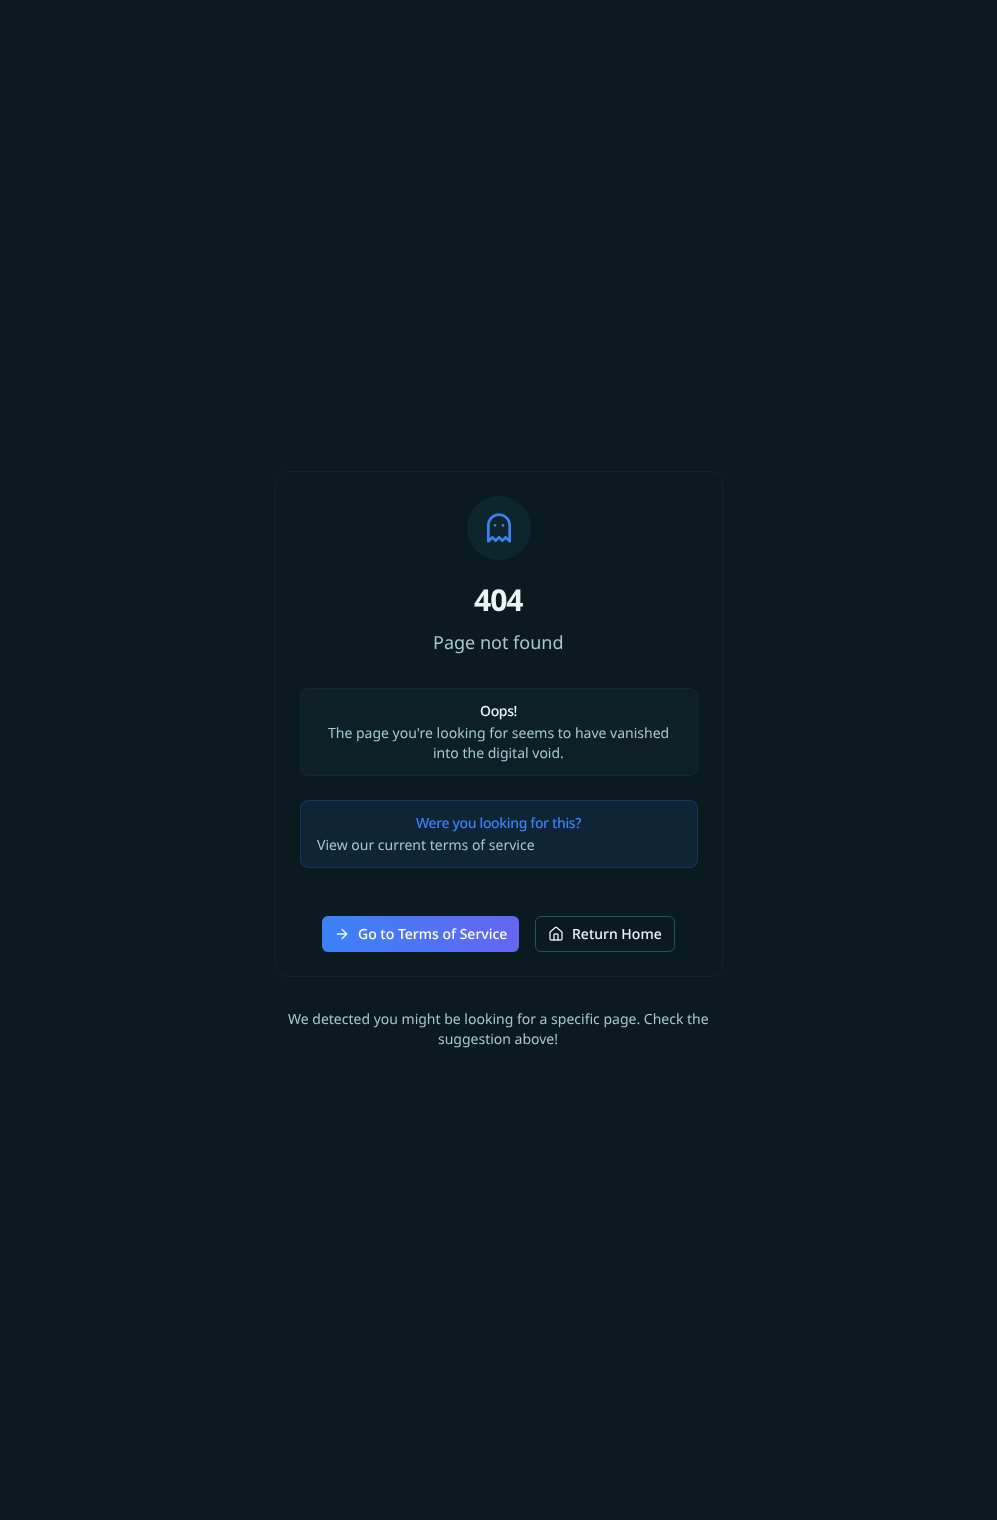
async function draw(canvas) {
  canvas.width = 997
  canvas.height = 1520
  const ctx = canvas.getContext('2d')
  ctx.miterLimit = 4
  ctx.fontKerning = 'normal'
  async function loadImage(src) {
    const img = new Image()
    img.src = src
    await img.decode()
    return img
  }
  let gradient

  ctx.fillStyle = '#0a1a1f'
  ctx.fillRect(0, 0, 997, 1520)
  ctx.beginPath()
  ctx.roundRect(275.5, 471.5, 447, 505, 11.5)
  ctx.strokeStyle = '#0d262c'
  ctx.stroke()
  ctx.fillStyle = '#0d262c'
  ctx.beginPath()
  ctx.arc(499, 528, 32, 0, 2 * Math.PI)
  ctx.fill()
  ctx.drawImage(await loadImage('image0.png'), 487, 513, 24, 30)
  ctx.letterSpacing = '-1px'
  ctx.font = 'bold 30px Noto Sans'
  ctx.fillStyle = '#e9f5f8'
  ctx.fillText('404', 474, 611)
  ctx.letterSpacing = '0px'
  ctx.font = '18px Noto Sans'
  ctx.fillStyle = '#a7c6cd'
  ctx.fillText('Page not found', 433, 649)
  ctx.fillStyle = '#0c2026'
  ctx.beginPath()
  ctx.roundRect(300, 688, 398, 88, 8)
  ctx.fill()
  ctx.beginPath()
  ctx.roundRect(300.5, 688.5, 397, 87, 7.5)
  ctx.strokeStyle = '#1a556133'
  ctx.stroke()
  ctx.letterSpacing = '-0.35px'
  ctx.font = '500 14px Noto Sans'
  ctx.fillStyle = '#e9f5f8'
  ctx.fillText('Oops!', 480, 716)
  ctx.letterSpacing = '0px'
  ctx.font = '14px Noto Sans'
  ctx.fillStyle = '#a7c6cd'
  ctx.fillText('The page you\'re looking for seems to have vanished', 328, 738)
  ctx.fillText('into the digital void.', 433, 758)
  ctx.fillStyle = '#0f2435'
  ctx.beginPath()
  ctx.roundRect(300, 800, 398, 68, 8)
  ctx.fill()
  ctx.beginPath()
  ctx.roundRect(300.5, 800.5, 397, 67, 7.5)
  ctx.strokeStyle = '#3b82f633'
  ctx.stroke()
  ctx.letterSpacing = '-0.35px'
  ctx.font = '500 14px Noto Sans'
  ctx.fillStyle = '#3b82f6'
  ctx.fillText('Were you looking for this?', 416, 828)
  ctx.letterSpacing = '0px'
  ctx.font = '14px Noto Sans'
  ctx.fillStyle = '#a7c6cd'
  ctx.fillText('View our current terms of service', 317, 850)
  gradient = ctx.createLinearGradient(322, 934, 519, 934)
  gradient.addColorStop(0, '#3b82f6')
  gradient.addColorStop(1, '#6366f1')
  ctx.fillStyle = gradient
  ctx.beginPath()
  ctx.roundRect(322, 916, 197, 36, 6)
  ctx.fill()
  ctx.drawImage(await loadImage('image1.png'), 336, 928, 12, 12)
  ctx.font = '500 14px Noto Sans'
  ctx.fillStyle = '#fff'
  ctx.fillText('Go to Terms of Service', 358, 939)
  ctx.beginPath()
  ctx.roundRect(535.5, 916.5, 139, 35, 5.5)
  ctx.strokeStyle = '#1a5561'
  ctx.stroke()
  ctx.drawImage(await loadImage('image2.png'), 549, 926, 14, 15)
  ctx.fillStyle = '#e9f5f8'
  ctx.fillText('Return Home', 572, 939)
  ctx.font = '14px Noto Sans'
  ctx.fillStyle = '#a7c6cd'
  ctx.fillText('We detected you might be looking for a specific page. Check the', 288, 1024)
  ctx.fillText('suggestion above!', 438, 1044)
}

draw(document.querySelector('canvas'))
